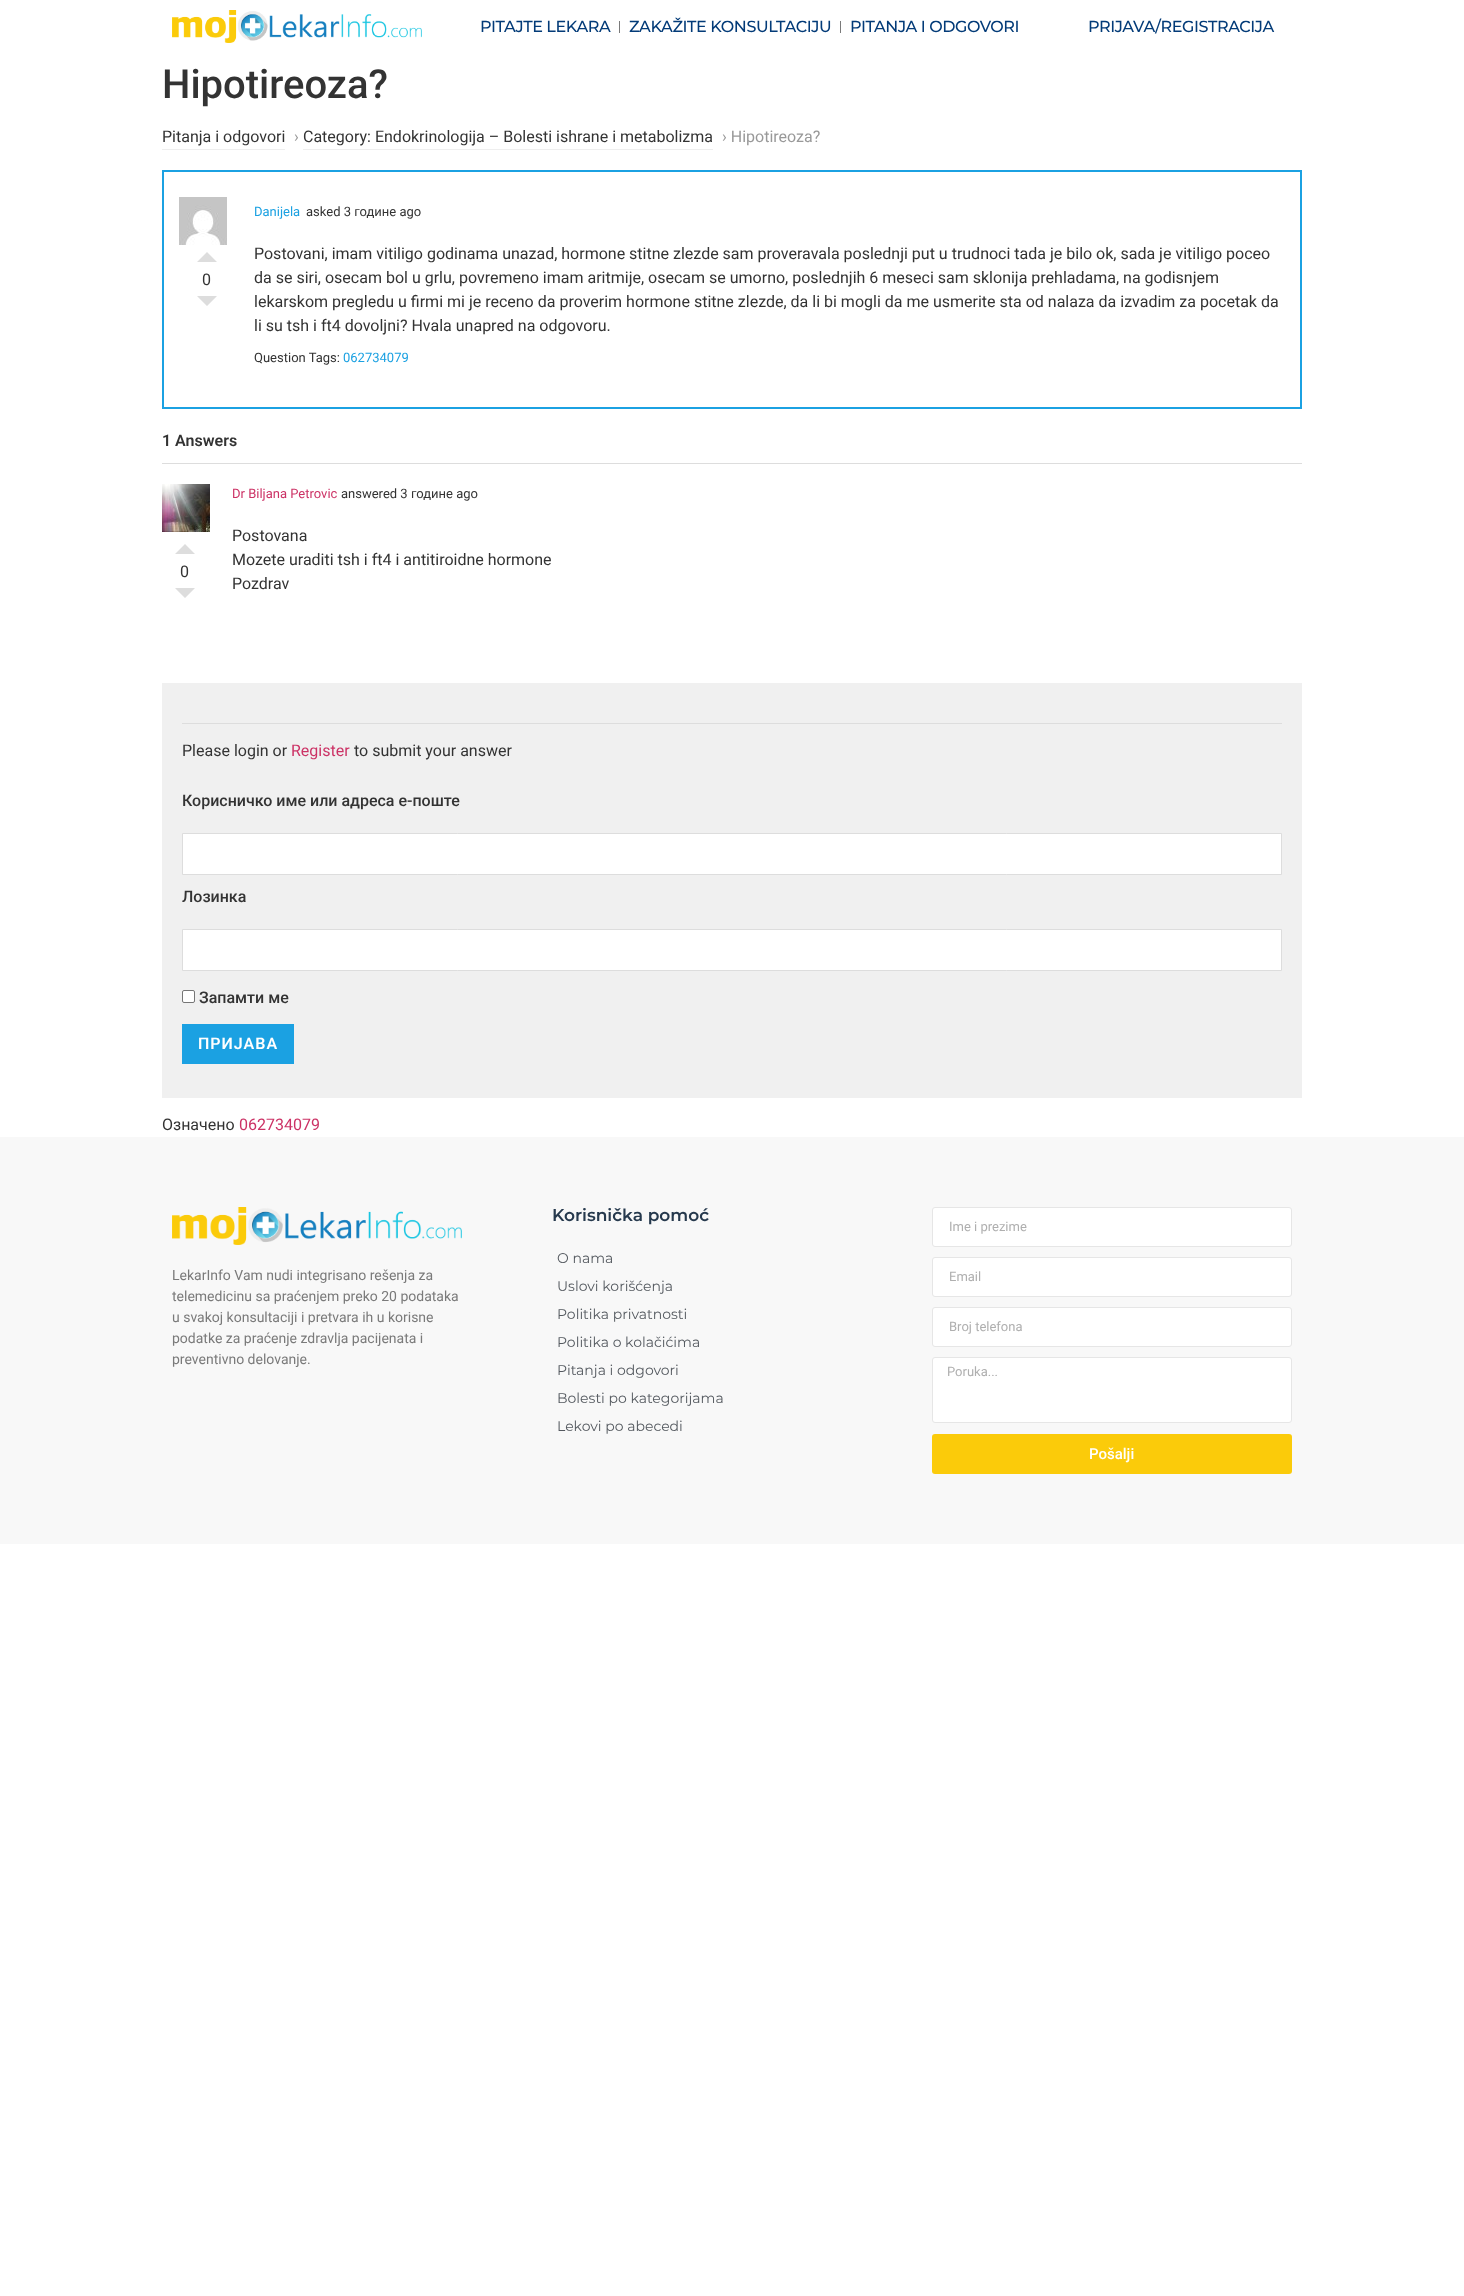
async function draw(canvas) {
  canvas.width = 1464
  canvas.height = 2296
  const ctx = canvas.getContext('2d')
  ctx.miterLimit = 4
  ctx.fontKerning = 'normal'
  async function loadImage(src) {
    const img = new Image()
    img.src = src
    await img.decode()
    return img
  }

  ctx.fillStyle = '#fff'
  ctx.fillRect(0, 0, 1464, 2296)
  ctx.drawImage(await loadImage('image0.png'), 172, 10, 250, 33)
  ctx.letterSpacing = '-0.4px'
  ctx.font = '500 16px Montserrat'
  ctx.fillStyle = '#033b78'
  ctx.fillText('PITAJTE LEKARA', 480, 32)
  ctx.fillStyle = '#7a7a7a'
  ctx.fillRect(619, 21, 1, 12)
  ctx.fillStyle = '#033b78'
  ctx.fillText('ZAKAŽITE KONSULTACIJU', 629, 32)
  ctx.fillStyle = '#7a7a7a'
  ctx.fillRect(840, 21, 1, 12)
  ctx.fillStyle = '#033b78'
  ctx.fillText('PITANJA I ODGOVORI', 850, 32)
  ctx.fillText('PRIJAVA/REGISTRACIJA', 1088, 32)
  ctx.letterSpacing = '0px'
  ctx.font = '500 40px Roboto'
  ctx.fillStyle = '#333'
  ctx.fillText('Hipotireoza?', 162, 98)
  ctx.fillStyle = '#eee'
  ctx.fillRect(162, 149, 123, 1)
  ctx.font = '16px Roboto'
  ctx.fillStyle = '#333'
  ctx.fillText('Pitanja i odgovori', 162, 142)
  ctx.fillStyle = '#999'
  ctx.fillText('›', 294, 142)
  ctx.fillStyle = '#eee'
  ctx.fillRect(303, 149, 410, 1)
  ctx.fillStyle = '#333'
  ctx.fillText('Category: Endokrinologija – Bolesti ishrane i metabolizma', 303, 142)
  ctx.fillStyle = '#999'
  ctx.fillText('› Hipotireoza?', 722, 142)
  ctx.strokeStyle = '#1ba1e2'
  ctx.lineWidth = 2
  ctx.strokeRect(163, 171, 1138, 237)
  ctx.drawImage(await loadImage('image1.png'), 179, 197, 48, 48)
  ctx.font = '13px Roboto'
  ctx.fillStyle = '#1ba1e2'
  ctx.fillText('Danijela', 254, 216)
  ctx.fillStyle = '#333'
  ctx.fillText('asked 3 године ago', 306, 216)
  ctx.font = '16px Roboto'
  ctx.fillText('0', 202, 285)
  ctx.fillStyle = '#ddd'
  ctx.beginPath()
  ctx.moveTo(217, 262)
  ctx.lineTo(197, 262)
  ctx.lineTo(207, 252)
  ctx.closePath()
  ctx.moveTo(197, 296)
  ctx.lineTo(217, 296)
  ctx.lineTo(207, 306)
  ctx.closePath()
  ctx.fill()
  ctx.fillStyle = '#333'
  ctx.fillText('Postovani, imam vitiligo godinama unazad, hormone stitne zlezde sam proveravala poslednji put u trudnoci tada je bilo ok, sada je vitiligo poceo', 254, 259)
  ctx.fillText('da se siri, osecam bol u grlu, povremeno imam aritmije, osecam se umorno, poslednjih 6 meseci sam sklonija prehladama, na godisnjem', 254, 283)
  ctx.fillText('lekarskom pregledu u firmi mi je receno da proverim hormone stitne zlezde, da li bi mogli da me usmerite sta od nalaza da izvadim za pocetak da', 254, 307)
  ctx.fillText('li su tsh i ft4 dovoljni? Hvala unapred na odgovoru.', 254, 331)
  ctx.font = '13px Roboto'
  ctx.fillText('Question Tags:', 254, 362)
  ctx.fillStyle = '#1ba1e2'
  ctx.fillText('062734079', 343, 362)
  ctx.font = '600 16px Roboto'
  ctx.fillStyle = '#333'
  ctx.fillText('1 Answers', 162, 446)
  ctx.fillStyle = '#ddd'
  ctx.fillRect(162, 463, 1140, 1)
  ctx.drawImage(await loadImage('image2.png'), 162, 484, 48, 48)
  ctx.font = '13px Roboto'
  ctx.fillStyle = '#c36'
  ctx.fillText('Dr Biljana Petrovic', 232, 498)
  ctx.fillStyle = '#333'
  ctx.fillText('answered 3 године ago', 341, 498)
  ctx.font = '16px Roboto'
  ctx.fillText('0', 180, 577)
  ctx.fillStyle = '#ddd'
  ctx.beginPath()
  ctx.moveTo(195, 554)
  ctx.lineTo(175, 554)
  ctx.lineTo(185, 544)
  ctx.closePath()
  ctx.moveTo(175, 588)
  ctx.lineTo(195, 588)
  ctx.lineTo(185, 598)
  ctx.closePath()
  ctx.fill()
  ctx.fillStyle = '#333'
  ctx.fillText('Postovana', 232, 541)
  ctx.fillText('Mozete uraditi tsh i ft4 i antitiroidne hormone', 232, 565)
  ctx.fillText('Pozdrav', 232, 589)
  ctx.fillStyle = '#f0f0f0'
  ctx.fillRect(162, 683, 1140, 415)
  ctx.fillStyle = '#ddd'
  ctx.fillRect(182, 723, 1100, 1)
  ctx.fillStyle = '#333'
  ctx.fillText('Please login or', 182, 756)
  ctx.fillStyle = '#c36'
  ctx.fillText('Register', 291, 756)
  ctx.fillStyle = '#333'
  ctx.fillText('to submit your answer', 354, 756)
  ctx.font = '500 16px Roboto'
  ctx.fillText('Корисничко име или адреса е-поште', 182, 806)
  ctx.fillStyle = '#fff'
  ctx.beginPath()
  ctx.rect(182.5, 833.5, 1099, 41)
  ctx.fill()
  ctx.strokeStyle = '#ddd'
  ctx.lineWidth = 1
  ctx.stroke()
  ctx.fillStyle = '#333'
  ctx.fillText('Лозинка', 182, 902)
  ctx.fillStyle = '#fff'
  ctx.beginPath()
  ctx.rect(182.5, 929.5, 1099, 41)
  ctx.fill()
  ctx.stroke()
  ctx.beginPath()
  ctx.roundRect(182.5, 990.5, 12, 12, 1.5)
  ctx.fill()
  ctx.strokeStyle = '#767676'
  ctx.stroke()
  ctx.fillStyle = '#333'
  ctx.fillText('Запамти ме', 199, 1003)
  ctx.fillStyle = '#1ba1e2'
  ctx.fillRect(182, 1024, 112, 40)
  ctx.letterSpacing = '1px'
  ctx.font = '600 16px Roboto'
  ctx.fillStyle = '#fff'
  ctx.fillText('ПРИЈАВА', 198, 1049)
  ctx.letterSpacing = '0px'
  ctx.font = '16px Roboto'
  ctx.fillStyle = '#333'
  ctx.fillText('Означено', 162, 1130)
  ctx.fillStyle = '#c36'
  ctx.fillText('062734079', 239, 1130)
  ctx.fillStyle = '#f8f8f8'
  ctx.fillRect(0, 1137, 1464, 407)
  ctx.drawImage(await loadImage('image3.png'), 172, 1207, 290, 38)
  ctx.font = '14px Roboto'
  ctx.fillStyle = '#7a7a7a'
  ctx.fillText('LekarInfo Vam nudi integrisano rešenja za', 172, 1280)
  ctx.fillText('telemedicinu sa praćenjem preko 20 podataka', 172, 1301)
  ctx.fillText('u svakoj konsultaciji i pretvara ih u korisne', 172, 1322)
  ctx.fillText('podatke za praćenje zdravlja pacijenata i', 172, 1343)
  ctx.fillText('preventivno delovanje.', 172, 1364)
  ctx.font = '600 17px Montserrat'
  ctx.fillStyle = '#26394d'
  ctx.fillText('Korisnička pomoć', 552, 1221)
  ctx.font = '14px Montserrat'
  ctx.fillStyle = '#54595f'
  ctx.fillText('O nama', 557, 1263)
  ctx.fillText('Uslovi korišćenja', 557, 1291)
  ctx.fillText('Politika privatnosti', 557, 1319)
  ctx.fillText('Politika o kolačićima', 557, 1347)
  ctx.fillText('Pitanja i odgovori', 557, 1375)
  ctx.fillText('Bolesti po kategorijama', 557, 1403)
  ctx.fillText('Lekovi po abecedi', 557, 1431)
  ctx.fillStyle = '#fff'
  ctx.beginPath()
  ctx.roundRect(932.5, 1207.5, 359, 39, 2.5)
  ctx.fill()
  ctx.strokeStyle = '#e6e6e6'
  ctx.stroke()
  ctx.font = '13px Roboto'
  ctx.fillStyle = '#afafaf'
  ctx.fillText('Ime i prezime', 949, 1231)
  ctx.fillStyle = '#fff'
  ctx.beginPath()
  ctx.roundRect(932.5, 1257.5, 359, 39, 2.5)
  ctx.fill()
  ctx.stroke()
  ctx.fillStyle = '#afafaf'
  ctx.fillText('Email', 949, 1281)
  ctx.fillStyle = '#fff'
  ctx.beginPath()
  ctx.roundRect(932.5, 1307.5, 359, 39, 2.5)
  ctx.fill()
  ctx.stroke()
  ctx.fillStyle = '#afafaf'
  ctx.fillText('Broj telefona', 949, 1331)
  ctx.fillStyle = '#fff'
  ctx.beginPath()
  ctx.roundRect(932.5, 1357.5, 359, 65, 2.5)
  ctx.fill()
  ctx.stroke()
  ctx.fillStyle = '#afafaf'
  ctx.fillText('Poruka...', 947, 1376)
  ctx.fillStyle = '#fbcb0a'
  ctx.beginPath()
  ctx.roundRect(932, 1434, 360, 40, 3)
  ctx.fill()
  ctx.font = '500 15px Roboto'
  ctx.fillStyle = '#fff'
  ctx.fillText('Pošalji', 1089, 1459)
}

draw(document.querySelector('canvas'))
